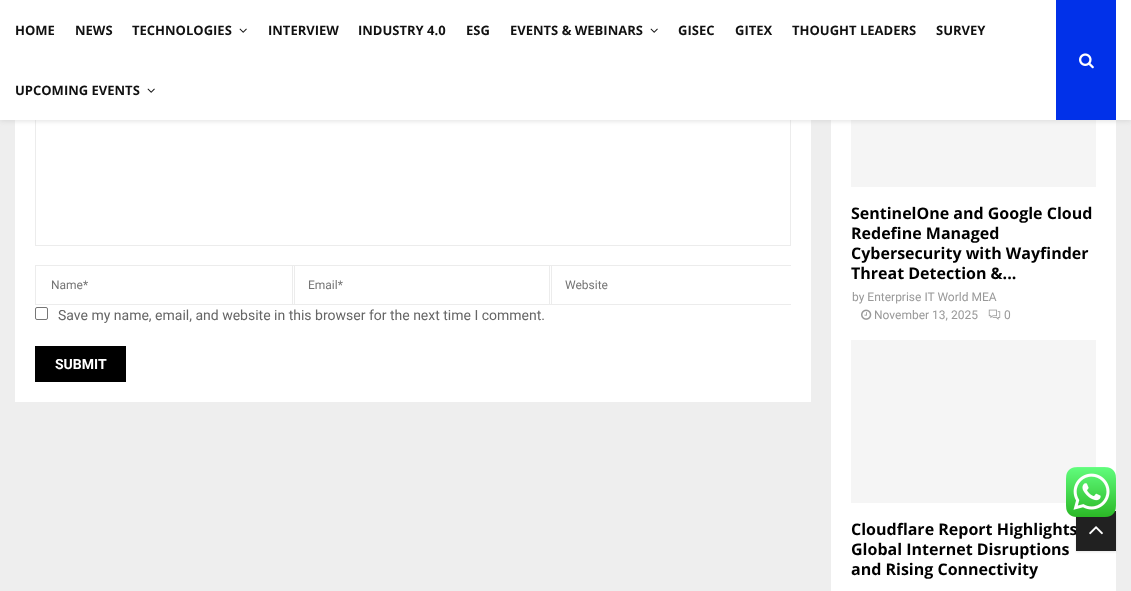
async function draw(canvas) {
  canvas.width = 1131
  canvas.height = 591
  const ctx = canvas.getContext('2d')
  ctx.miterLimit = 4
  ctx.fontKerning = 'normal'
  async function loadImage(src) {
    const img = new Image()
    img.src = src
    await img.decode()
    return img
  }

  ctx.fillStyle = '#eee'
  ctx.fillRect(0, 0, 1131, 591)
  ctx.fillStyle = '#fff'
  ctx.fillRect(15, 120, 796, 282)
  ctx.strokeStyle = '#ececec'
  ctx.strokeRect(35.5, 89.5, 755, 156)
  ctx.fillRect(831, 120, 285, 471)
  ctx.fillStyle = '#f5f5f5'
  ctx.fillRect(851, 120, 245, 67)
  ctx.fillStyle = '#bebebe75'
  ctx.filter = 'blur(2.5px)'
  ctx.beginPath()
  ctx.rect(0, 1, 1131, 120)
  ctx.fill()
  ctx.filter = 'none'
  ctx.fillStyle = '#fff'
  ctx.fillRect(0, 0, 1131, 120)
  ctx.font = 'bold 13px Open Sans'
  ctx.fillStyle = '#111'
  ctx.fillText('HOME', 15, 35)
  ctx.fillText('NEWS', 75, 35)
  ctx.fillText('TECHNOLOGIES', 132, 35)
  ctx.drawImage(await loadImage('image0.png'), 239, 28, 8, 5)
  ctx.fillText('INTERVIEW', 268, 35)
  ctx.fillText('INDUSTRY 4.0', 358, 35)
  ctx.fillText('ESG', 466, 35)
  ctx.fillText('EVENTS & WEBINARS', 510, 35)
  ctx.drawImage(await loadImage('image0.png'), 650, 28, 8, 5)
  ctx.fillText('GISEC', 678, 35)
  ctx.fillText('GITEX', 735, 35)
  ctx.fillText('THOUGHT LEADERS', 792, 35)
  ctx.fillText('SURVEY', 936, 35)
  ctx.fillText('UPCOMING EVENTS', 15, 95)
  ctx.drawImage(await loadImage('image0.png'), 147, 88, 8, 5)
  ctx.fillStyle = '#0131e9'
  ctx.fillRect(1056, 0, 60, 120)
  ctx.drawImage(await loadImage('image1.png'), 1079, 53, 15, 16)
  ctx.strokeRect(35.5, 265.5, 259, 39)
  ctx.font = '12px Roboto'
  ctx.fillStyle = '#757575'
  ctx.fillText('Name*', 51, 289)
  ctx.strokeRect(292.5, 265.5, 259, 39)
  ctx.fillText('Email*', 308, 289)
  ctx.save()
  ctx.beginPath()
  ctx.rect(35, 31, 756, 351)
  ctx.clip()
  ctx.strokeRect(549.5, 265.5, 259, 39)
  ctx.restore()
  ctx.fillText('Website', 565, 289)
  ctx.beginPath()
  ctx.roundRect(35.5, 307.5, 12, 12, 1.5)
  ctx.strokeStyle = '#767676'
  ctx.stroke()
  ctx.font = '14px Roboto'
  ctx.fillStyle = '#666'
  ctx.fillText('Save my name, email, and website in this browser for the next time I comment.', 58, 320)
  ctx.fillStyle = '#000'
  ctx.fillRect(35, 346, 91, 36)
  ctx.font = 'bold 14px Roboto'
  ctx.fillStyle = '#fff'
  ctx.fillText('SUBMIT', 55, 369)
  ctx.font = 'bold 16px Open Sans'
  ctx.fillStyle = '#000'
  ctx.fillText('SentinelOne and Google Cloud', 851, 219)
  ctx.fillText('Redefine Managed', 851, 239)
  ctx.fillText('Cybersecurity with Wayfinder', 851, 259)
  ctx.fillText('Threat Detection &...', 851, 279)
  ctx.font = '12px Roboto'
  ctx.fillStyle = '#999'
  ctx.fillText('by Enterprise IT World MEA', 852, 301)
  ctx.drawImage(await loadImage('image2.png'), 861, 309, 11, 11)
  ctx.fillText('November 13, 2025', 874, 319)
  ctx.drawImage(await loadImage('image3.png'), 988, 309, 13, 11)
  ctx.fillText('0', 1004, 319)
  ctx.fillStyle = '#f5f5f5'
  ctx.fillRect(851, 340, 245, 163)
  ctx.font = 'bold 16px Open Sans'
  ctx.fillStyle = '#000'
  ctx.fillText('Cloudflare Report Highlights', 851, 535)
  ctx.fillText('Global Internet Disruptions', 851, 555)
  ctx.fillText('and Rising Connectivity', 851, 575)
  ctx.fillStyle = '#0000001a'
  ctx.filter = 'blur(1px)'
  ctx.beginPath()
  ctx.rect(1076, 512, 40, 40)
  ctx.fill()
  ctx.filter = 'none'
  ctx.fillStyle = '#212121'
  ctx.fillRect(1076, 511, 40, 40)
  ctx.drawImage(await loadImage('image4.png'), 1066, 467, 50, 50)
  ctx.drawImage(await loadImage('image5.png'), 1089, 526, 14, 9)
}

draw(document.querySelector('canvas'))
